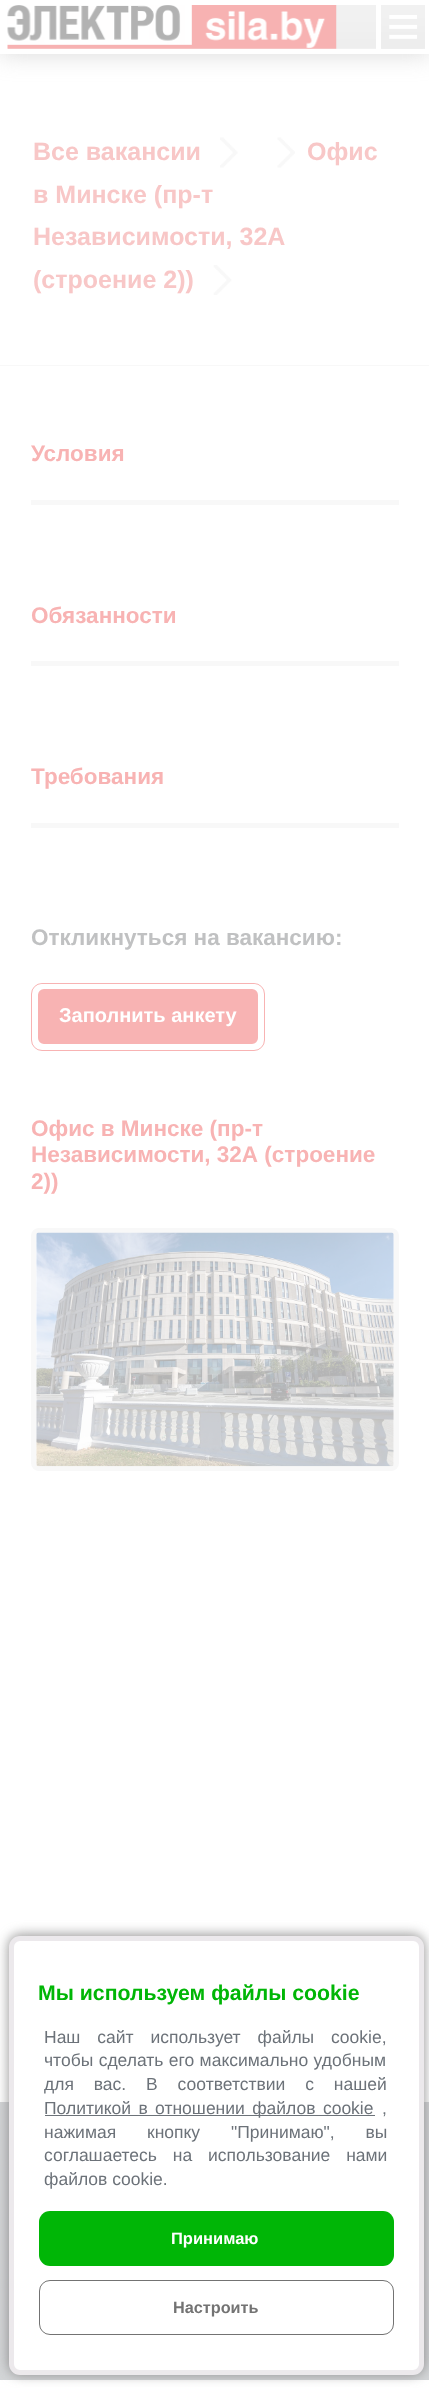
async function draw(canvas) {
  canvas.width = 429
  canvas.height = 2388
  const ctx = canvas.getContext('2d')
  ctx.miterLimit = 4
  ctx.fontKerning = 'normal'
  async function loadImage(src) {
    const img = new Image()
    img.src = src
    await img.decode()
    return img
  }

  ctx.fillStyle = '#fff'
  ctx.fillRect(0, 0, 429, 2388)
  ctx.fillStyle = '#b3b3b380'
  ctx.filter = 'blur(12.5px)'
  ctx.beginPath()
  ctx.rect(0, 0, 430, 54)
  ctx.fill()
  ctx.filter = 'none'
  ctx.fillStyle = '#fff'
  ctx.fillRect(0, 0, 429, 54)
  ctx.drawImage(await loadImage('image3.png'), 8, 48, 417, 1)
  ctx.drawImage(await loadImage('image2.png'), 8, 5, 417, 44)
  ctx.drawImage(await loadImage('image0.png'), 7, 5, 330, 44)
  ctx.drawImage(await loadImage('image1.png'), 381, 5, 44, 44)
  ctx.fillRect(376, 5, 5, 44)
  ctx.fillStyle = '#f8f8f8'
  ctx.fillRect(0, 365, 429, 1)
  ctx.font = 'bold 25px Liberation Sans'
  ctx.fillStyle = '#f8c7c7'
  ctx.fillText('Все вакансии', 33, 160)
  ctx.drawImage(await loadImage('image4.png'), 220, 137, 18, 31)
  ctx.drawImage(await loadImage('image5.png'), 277, 137, 18, 31)
  ctx.fillText('Офис', 307, 160)
  ctx.fillText('в Минске (пр-т', 33, 203)
  ctx.fillText('Независимости, 32А', 33, 245)
  ctx.fillText('(строение 2))', 33, 288)
  ctx.drawImage(await loadImage('image6.png'), 213, 265, 19, 30)
  ctx.fillStyle = '#f8f8f8'
  ctx.fillRect(31, 500, 368, 5)
  ctx.font = 'bold 22.5px Liberation Sans'
  ctx.fillStyle = '#f8b3b3'
  ctx.fillText('Условия', 31, 461)
  ctx.fillStyle = '#f8f8f8'
  ctx.fillRect(31, 661, 368, 5)
  ctx.fillStyle = '#f8b3b3'
  ctx.fillText('Обязанности', 31, 623)
  ctx.fillStyle = '#f8f8f8'
  ctx.fillRect(31, 823, 368, 5)
  ctx.fillStyle = '#f8b3b3'
  ctx.fillText('Требования', 31, 784)
  ctx.fillStyle = '#c0c1c2'
  ctx.fillText('Откликнуться на вакансию:', 31, 945)
  ctx.beginPath()
  ctx.roundRect(31.5, 983.5, 233, 67, 10.5)
  ctx.strokeStyle = '#f8b3b3'
  ctx.stroke()
  ctx.fillStyle = '#f8b3b3'
  ctx.beginPath()
  ctx.roundRect(35.5, 986.5, 225, 60, 8.5)
  ctx.fill()
  ctx.strokeStyle = '#fff'
  ctx.lineWidth = 5
  ctx.stroke()
  ctx.font = 'bold 20px Liberation Sans'
  ctx.fillStyle = '#fff'
  ctx.fillText('Заполнить анкету', 59, 1022)
  ctx.font = 'bold 22.5px Liberation Sans'
  ctx.fillStyle = '#f8b3b3'
  ctx.fillText('Офис в Минске (пр-т', 31, 1136)
  ctx.fillText('Независимости, 32А (строение', 31, 1162)
  ctx.fillText('2))', 31, 1189)
  ctx.beginPath()
  ctx.roundRect(33.5, 1230.5, 363, 238, 5.5)
  ctx.strokeStyle = '#f8f8f8'
  ctx.stroke()
  ctx.drawImage(await loadImage('image7.png'), 36, 1232, 358, 235)
  ctx.fillStyle = '#d3d5d7'
  ctx.fillRect(0, 2102, 429, 278)
  ctx.fillStyle = '#7c7b7bbf'
  ctx.filter = 'blur(6px)'
  ctx.beginPath()
  ctx.roundRect(8, 1934, 417, 441, 13)
  ctx.fill()
  ctx.filter = 'none'
  ctx.fillStyle = '#fff'
  ctx.beginPath()
  ctx.roundRect(11.5, 1938.5, 410, 434, 8.5)
  ctx.fill()
  ctx.strokeStyle = '#ece9ec'
  ctx.stroke()
  ctx.font = 'bold 21.25px Liberation Sans'
  ctx.fillStyle = '#00b606'
  ctx.fillText('Мы используем файлы cookie', 38, 2000)
  ctx.wordSpacing = '12px'
  ctx.font = '17.5px Liberation Sans'
  ctx.fillStyle = '#6c7279'
  ctx.fillText('Наш сайт использует файлы cookie,', 44, 2043)
  ctx.wordSpacing = '0.5px'
  ctx.fillText('чтобы сделать его максимально удобным', 44, 2066)
  ctx.wordSpacing = '15px'
  ctx.fillText('для вас. В соответствии с нашей', 44, 2090)
  ctx.fillRect(45, 2115, 330, 1)
  ctx.wordSpacing = '2.5px'
  ctx.fillText('Политикой в отношении файлов cookie', 44, 2114)
  ctx.wordSpacing = '0px'
  ctx.fillText(',', 382, 2114)
  ctx.wordSpacing = '26px'
  ctx.fillText('нажимая кнопку "Принимаю", вы', 44, 2138)
  ctx.wordSpacing = '11px'
  ctx.fillText('соглашаетесь на использование нами', 44, 2161)
  ctx.wordSpacing = '0px'
  ctx.fillText('файлов cookie.', 44, 2185)
  ctx.fillStyle = '#00b606'
  ctx.beginPath()
  ctx.roundRect(39, 2211, 355, 55, 11)
  ctx.fill()
  ctx.font = 'bold 16.5px Liberation Sans'
  ctx.fillStyle = '#fff'
  ctx.fillText('Принимаю', 171, 2244)
  ctx.beginPath()
  ctx.roundRect(39.5, 2280.5, 354, 54, 10.5)
  ctx.strokeStyle = '#737373'
  ctx.lineWidth = 1
  ctx.stroke()
  ctx.font = 'bold 16.25px Liberation Sans'
  ctx.fillStyle = '#737373'
  ctx.fillText('Настроить', 173, 2313)
}

draw(document.querySelector('canvas'))
